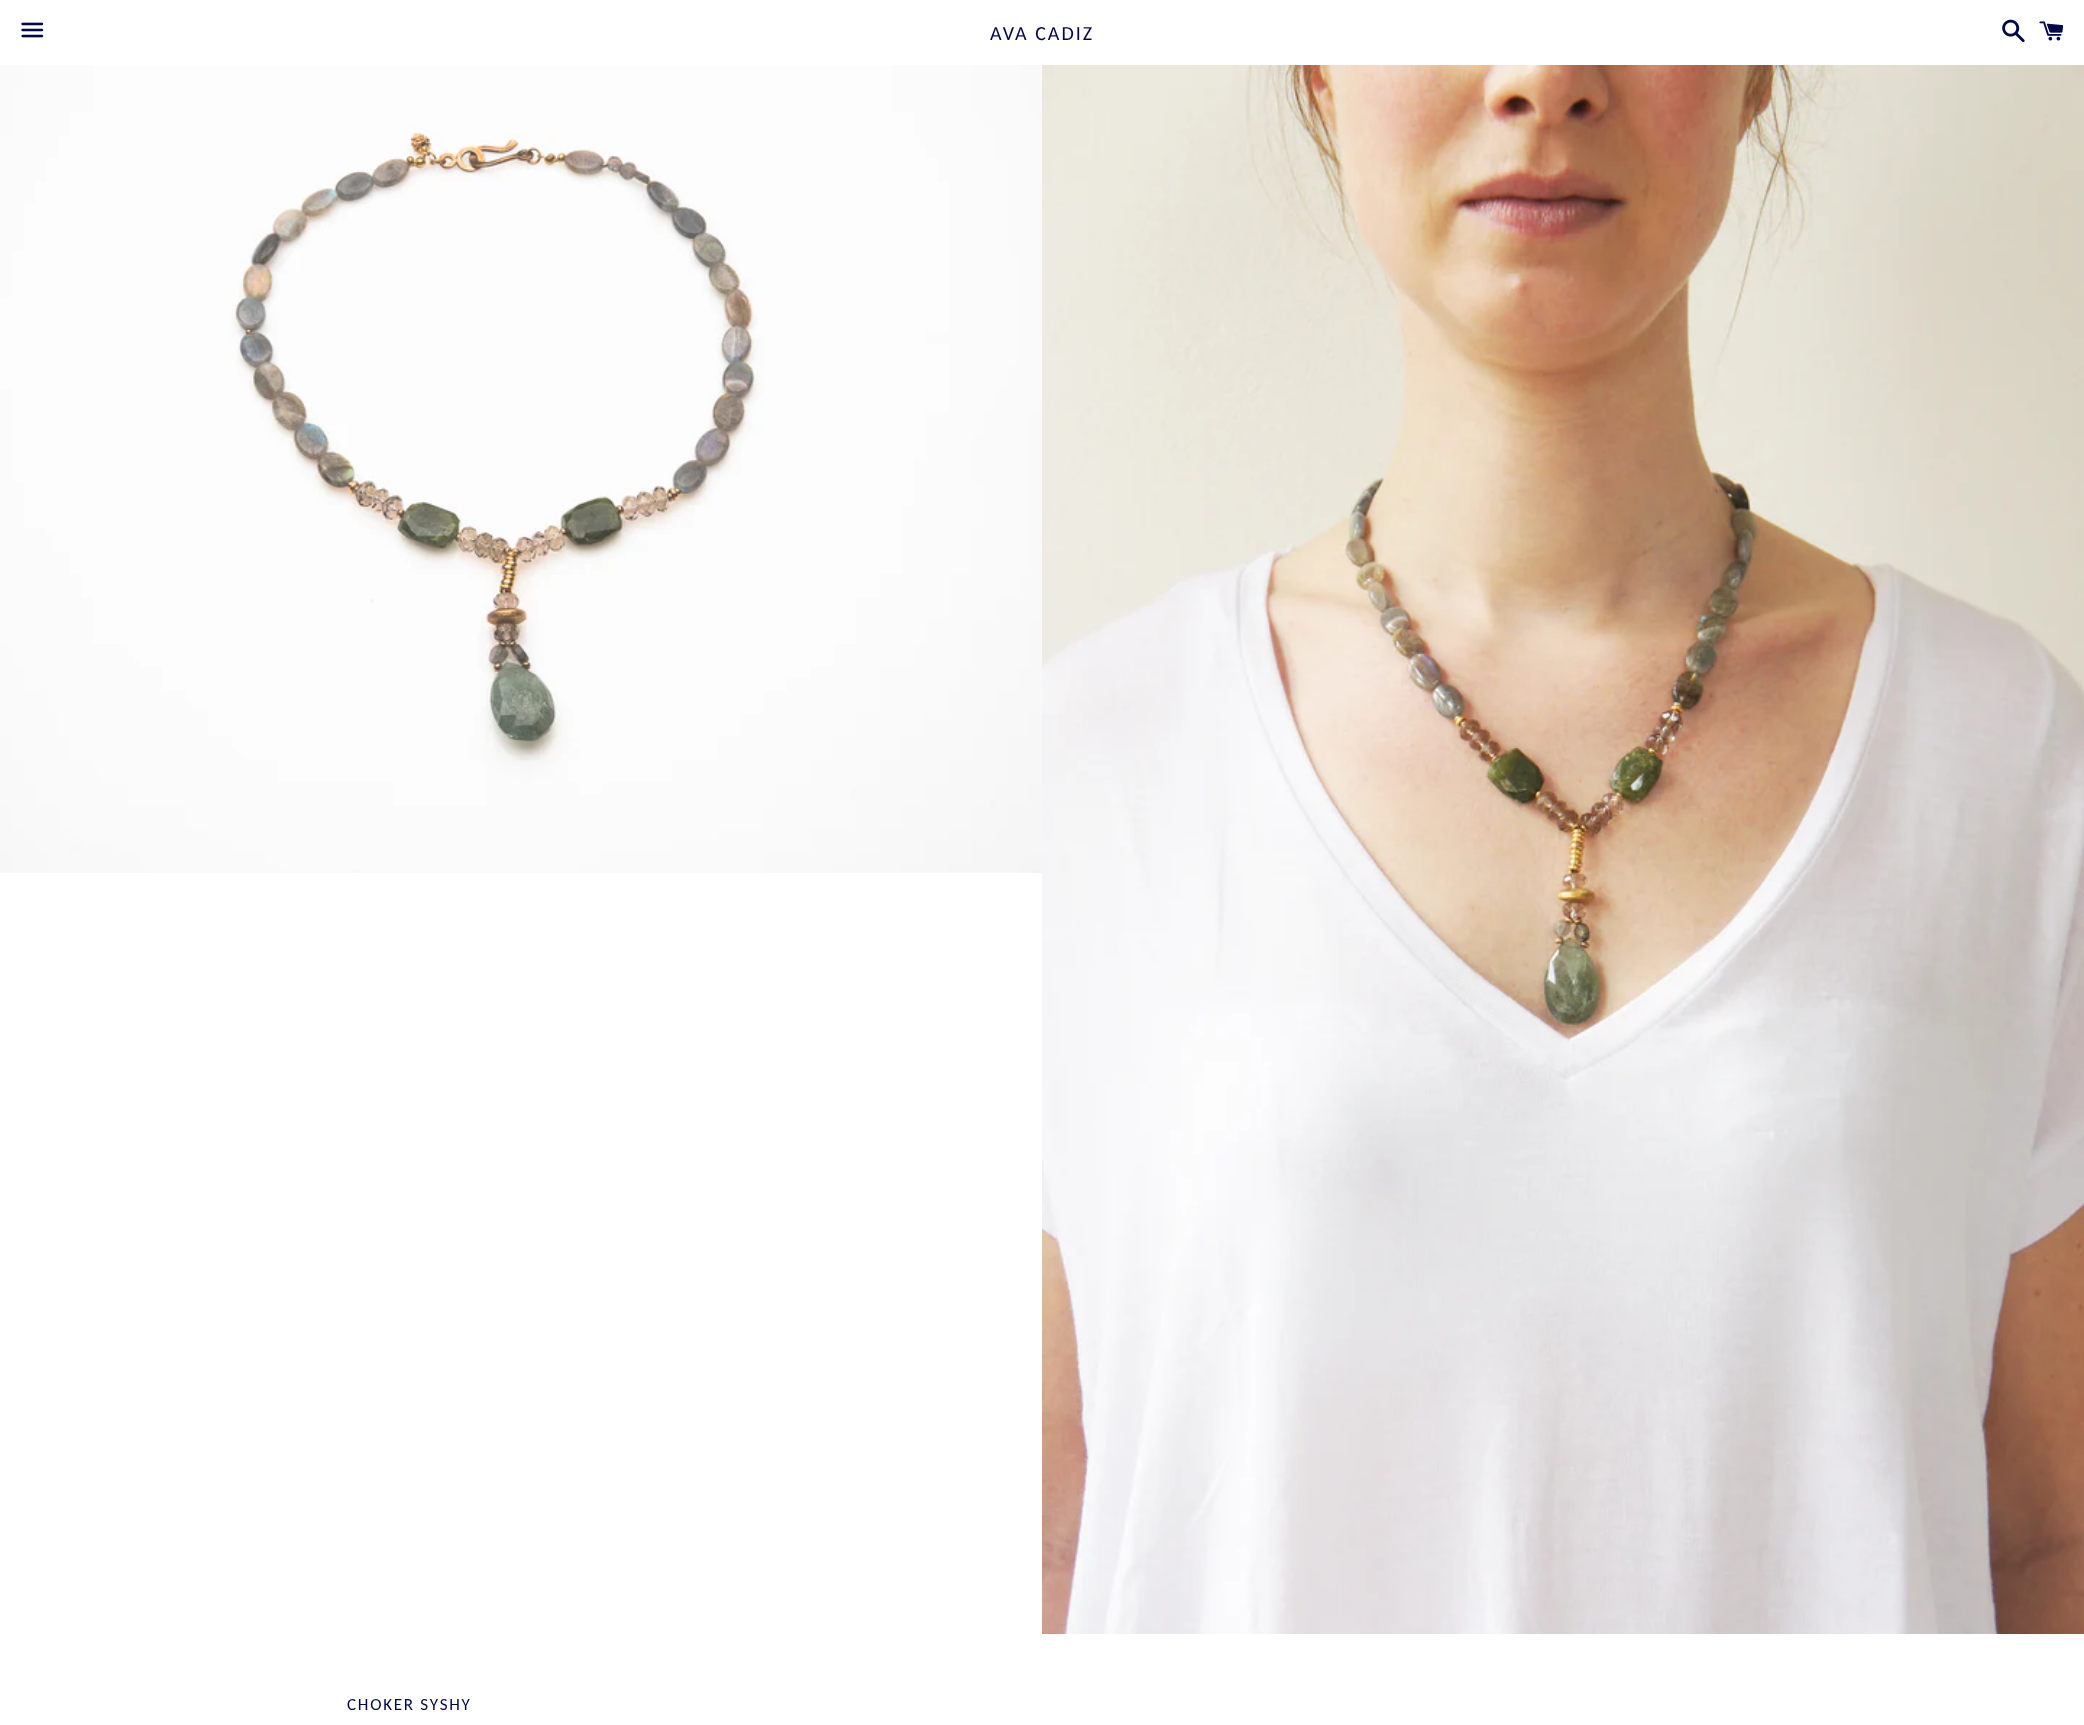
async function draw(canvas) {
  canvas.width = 2084
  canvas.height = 1725
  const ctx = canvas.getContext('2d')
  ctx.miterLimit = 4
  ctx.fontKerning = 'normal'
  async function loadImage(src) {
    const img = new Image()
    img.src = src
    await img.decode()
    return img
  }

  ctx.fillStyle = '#fff'
  ctx.fillRect(0, 0, 2084, 1725)
  ctx.drawImage(await loadImage('image0.png'), 21, 22, 23, 16)
  ctx.letterSpacing = '2px'
  ctx.font = '20px Carlito'
  ctx.fillStyle = '#040849'
  ctx.fillText('AVA CADIZ', 990, 40)
  ctx.drawImage(await loadImage('image1.png'), 2002, 19, 23, 24)
  ctx.drawImage(await loadImage('image2.png'), 2039, 21, 25, 20)
  ctx.drawImage(await loadImage('image3.png'), 0, 65, 1042, 808)
  ctx.drawImage(await loadImage('image4.png'), 1042, 65, 1042, 1569)
  ctx.letterSpacing = '1.75px'
  ctx.font = '17px Carlito'
  ctx.fillText('CHOKER SYSHY', 347, 1710)
}

draw(document.querySelector('canvas'))
